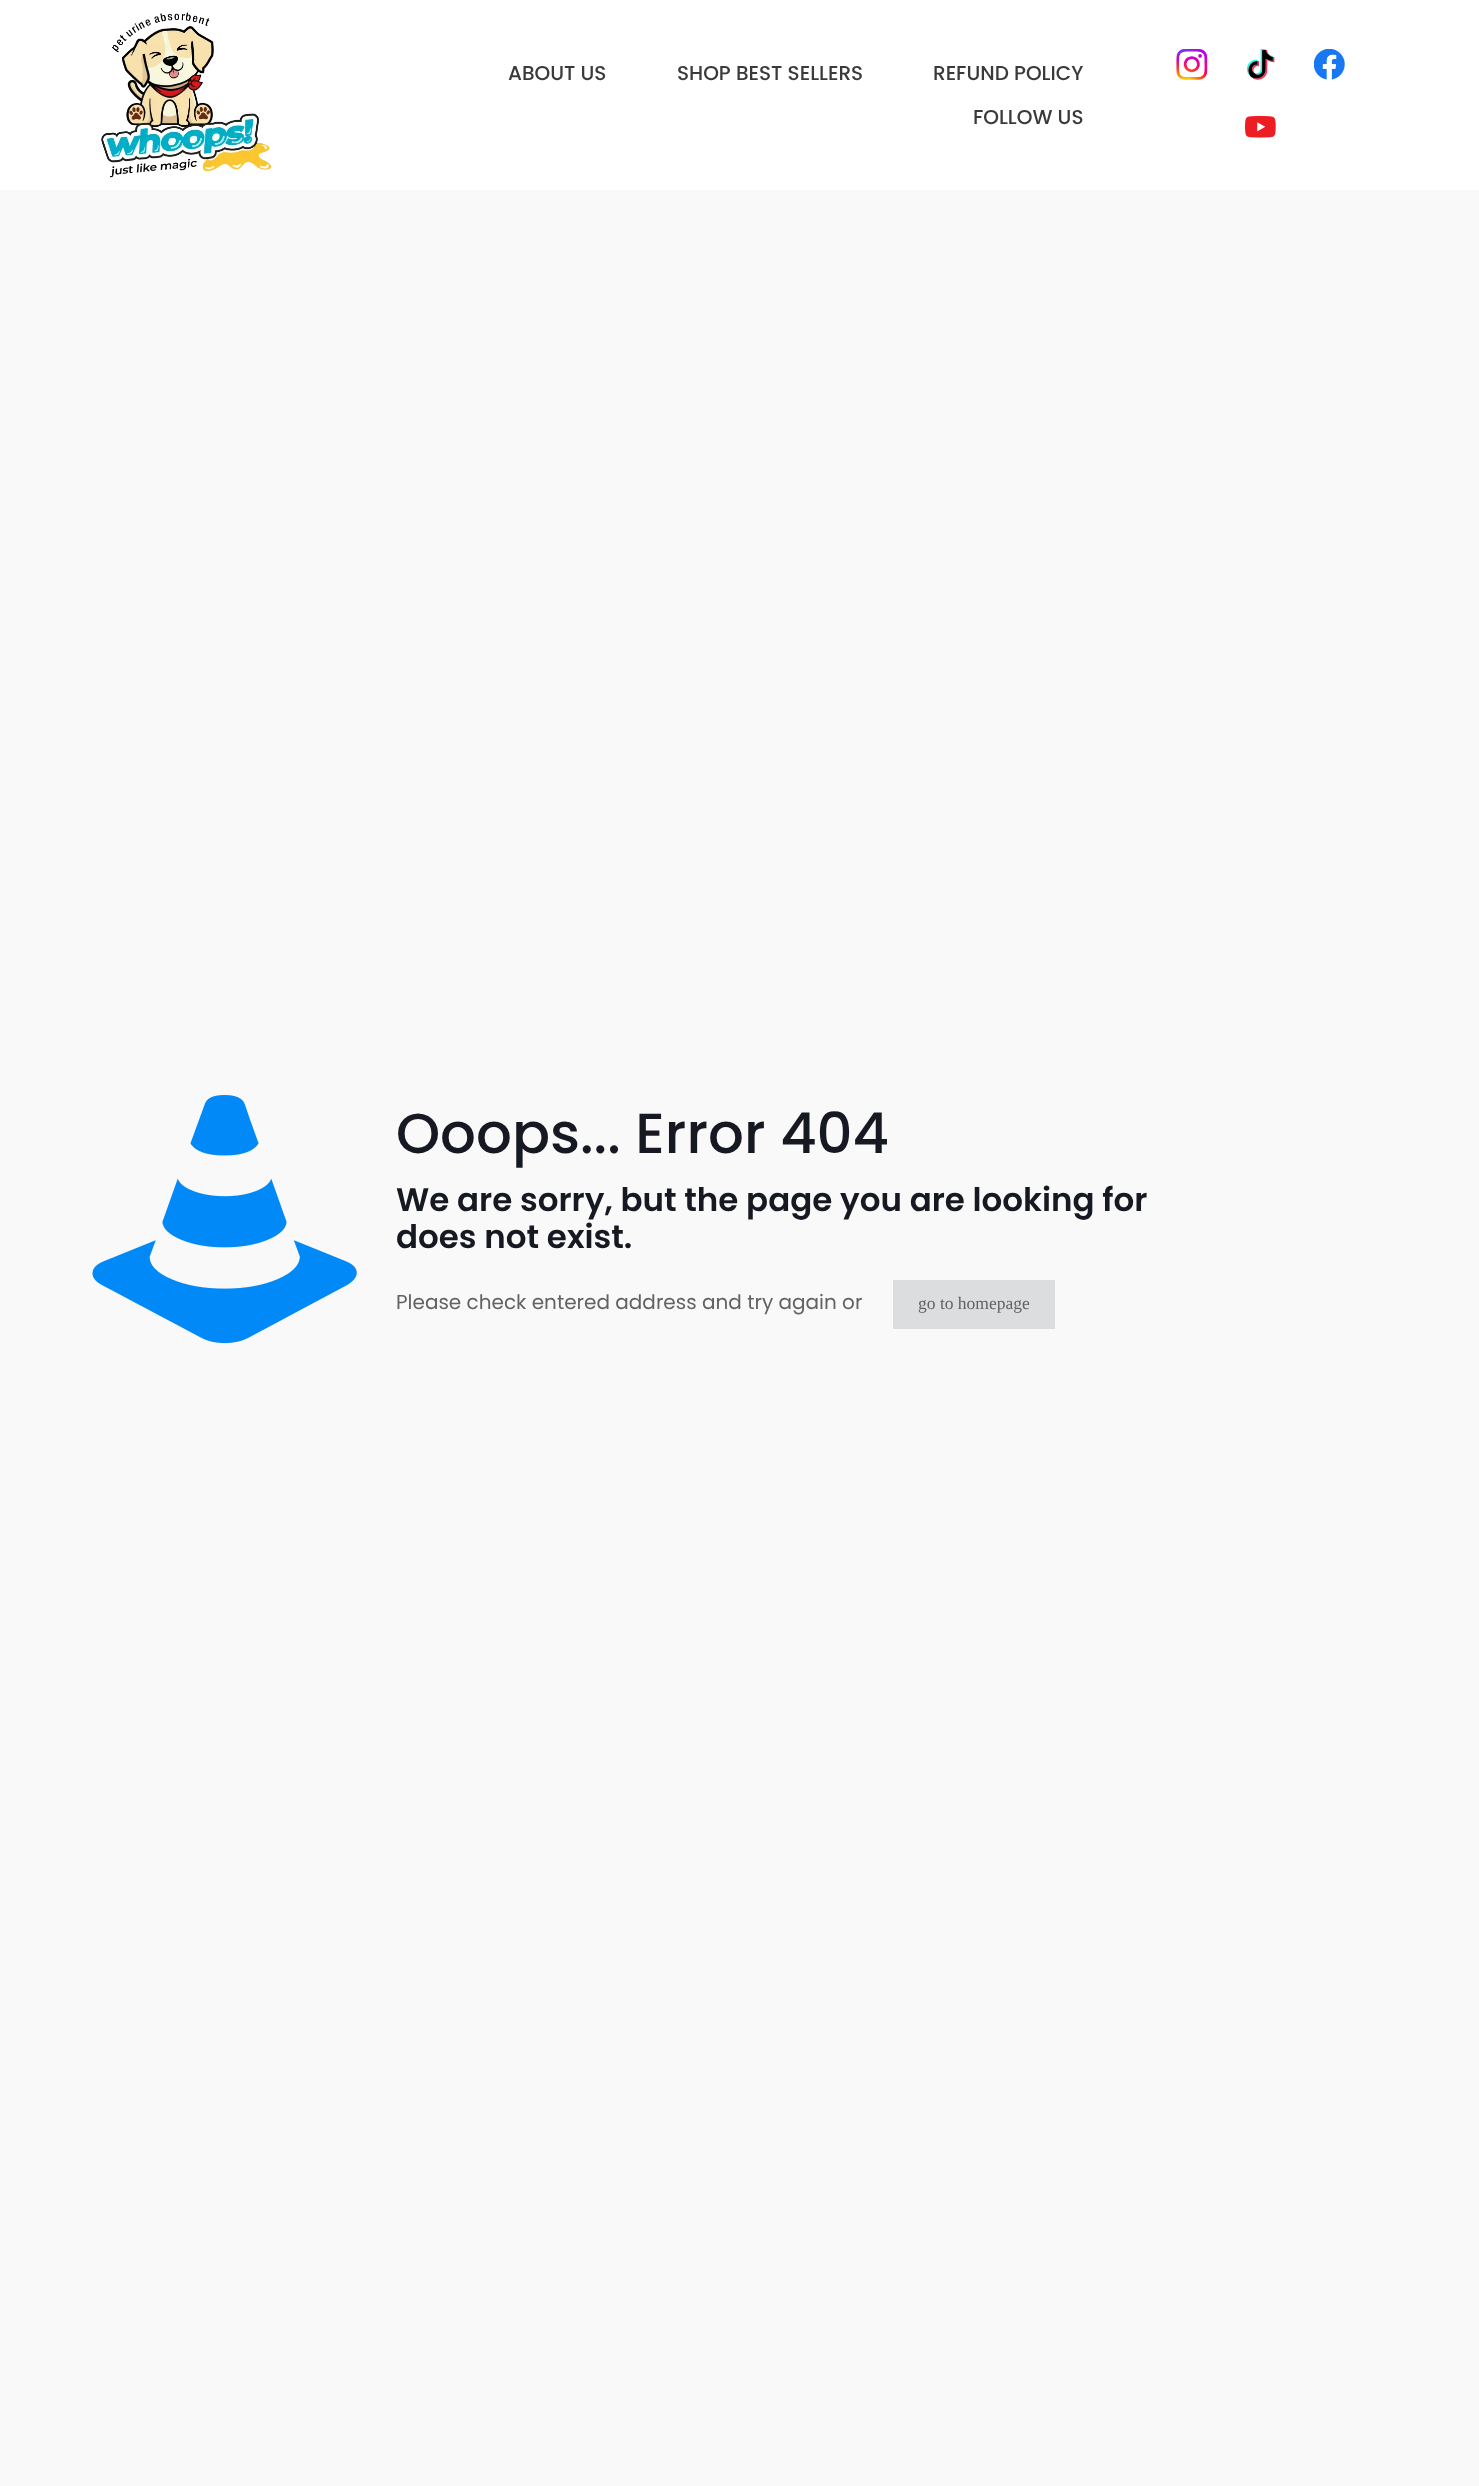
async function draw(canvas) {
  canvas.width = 1479
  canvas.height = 2486
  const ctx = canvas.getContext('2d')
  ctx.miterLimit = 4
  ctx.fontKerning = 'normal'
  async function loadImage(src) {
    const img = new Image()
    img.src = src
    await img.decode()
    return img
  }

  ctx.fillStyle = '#f9f9f9'
  ctx.fillRect(0, 0, 1479, 2486)
  ctx.fillStyle = '#fff'
  ctx.fillRect(0, 0, 1479, 190)
  ctx.drawImage(await loadImage('image0.png'), 101, 12, 171, 166)
  ctx.font = '500 20px Poppins'
  ctx.fillStyle = '#3a3a3a'
  ctx.fillText('ABOUT US', 508, 80)
  ctx.fillText('SHOP BEST SELLERS', 677, 80)
  ctx.fillText('REFUND POLICY', 933, 80)
  ctx.fillText('FOLLOW US', 973, 124)
  ctx.drawImage(await loadImage('image1.png'), 1176, 49, 32, 31)
  ctx.drawImage(await loadImage('image2.png'), 1246, 49, 29, 31)
  ctx.drawImage(await loadImage('image3.png'), 1314, 49, 31, 31)
  ctx.drawImage(await loadImage('image4.png'), 1245, 116, 31, 22)
  ctx.drawImage(await loadImage('image5.png'), 92, 1095, 265, 249)
  ctx.font = '500 56.25px Poppins'
  ctx.fillStyle = '#161922'
  ctx.fillText('Ooops... Error 404', 396, 1153)
  ctx.font = '600 32.5px Poppins'
  ctx.fillText('We are sorry, but the page you are looking for', 396, 1211)
  ctx.fillText('does not exist.', 396, 1248)
  ctx.font = '20px Poppins'
  ctx.fillStyle = '#626262'
  ctx.fillText('Please check entered address and try again or', 396, 1309)
  ctx.fillStyle = '#dbdddf'
  ctx.fillRect(893, 1280, 162, 49)
  ctx.font = '17.5px Liberation Serif'
  ctx.fillStyle = '#626262'
  ctx.fillText('go to homepage', 918, 1309)
}

draw(document.querySelector('canvas'))
